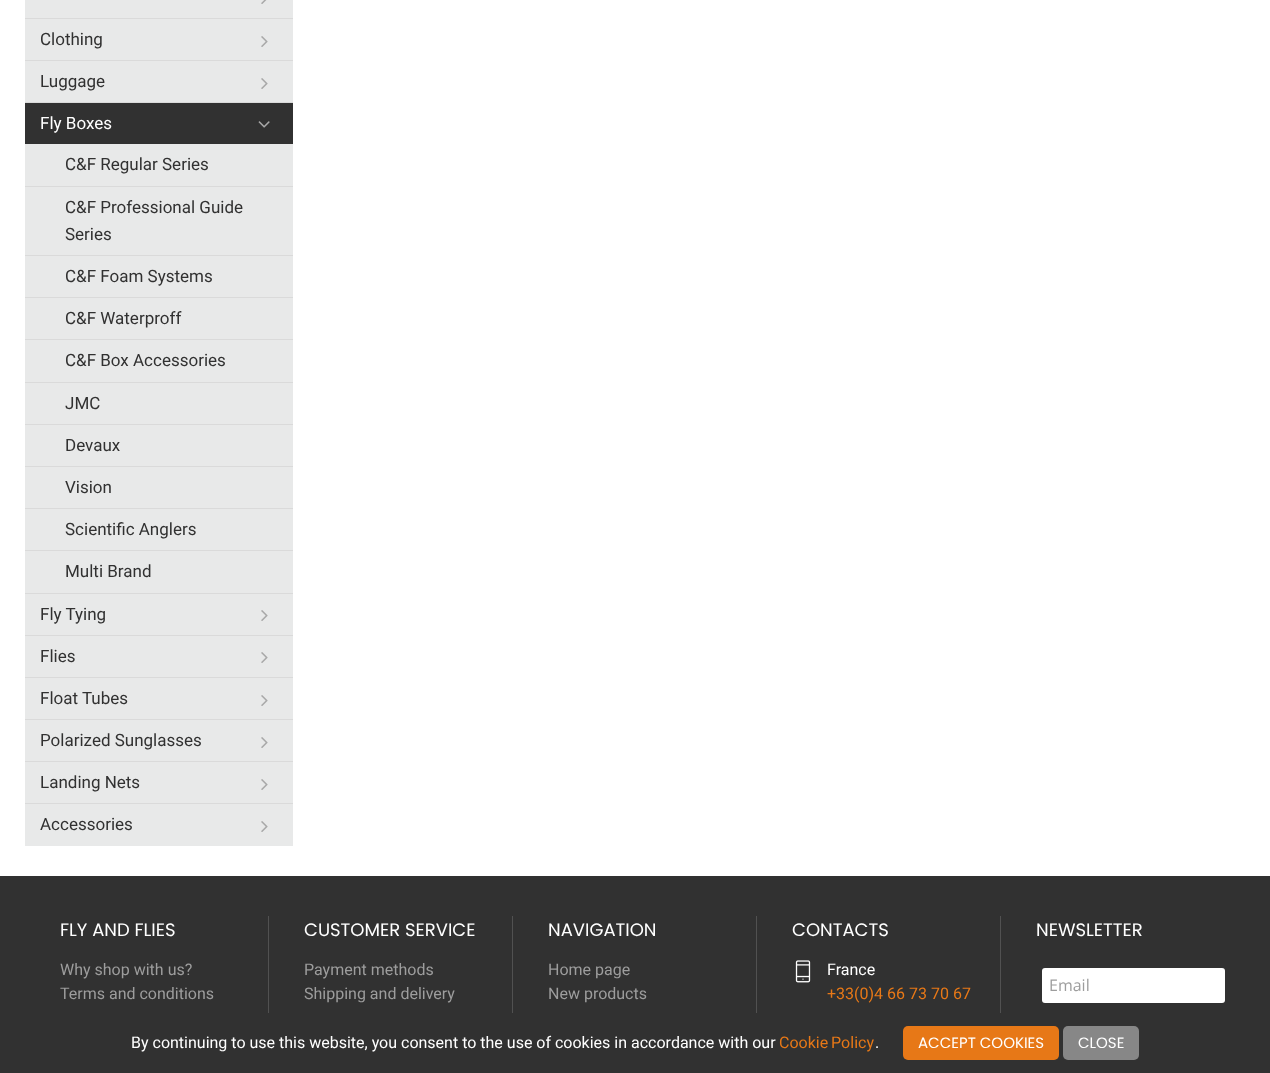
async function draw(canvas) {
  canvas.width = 1270
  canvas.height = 1073
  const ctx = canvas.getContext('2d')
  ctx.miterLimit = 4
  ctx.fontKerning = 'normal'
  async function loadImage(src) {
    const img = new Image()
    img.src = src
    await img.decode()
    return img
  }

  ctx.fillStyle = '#fff'
  ctx.fillRect(0, 0, 1270, 1073)
  ctx.fillStyle = '#e8e9e9'
  ctx.fillRect(25, 0, 268, 846)
  ctx.fillStyle = '#dadada'
  ctx.fillRect(25, 18, 268, 1)
  ctx.drawImage(await loadImage('image0.png'), 261, 0, 6, 4)
  ctx.fillRect(25, 60, 268, 1)
  ctx.font = '17px Roboto'
  ctx.fillStyle = '#313131'
  ctx.fillText('Clothing', 40, 45)
  ctx.drawImage(await loadImage('image1.png'), 261, 36, 7, 11)
  ctx.fillStyle = '#dadada'
  ctx.fillRect(25, 102, 268, 1)
  ctx.fillStyle = '#313131'
  ctx.fillText('Luggage', 40, 87)
  ctx.drawImage(await loadImage('image1.png'), 261, 78, 7, 11)
  ctx.fillRect(25, 103, 268, 41)
  ctx.fillStyle = '#fff'
  ctx.fillText('Fly Boxes', 40, 129)
  ctx.drawImage(await loadImage('image2.png'), 258, 121, 12, 7)
  ctx.fillStyle = '#dadada'
  ctx.fillRect(25, 186, 268, 1)
  ctx.fillStyle = '#313131'
  ctx.fillText('C&F Regular Series', 65, 170)
  ctx.fillStyle = '#dadada'
  ctx.fillRect(25, 255, 268, 1)
  ctx.fillStyle = '#313131'
  ctx.fillText('C&F Professional Guide', 65, 213)
  ctx.fillText('Series', 65, 240)
  ctx.fillStyle = '#dadada'
  ctx.fillRect(25, 297, 268, 1)
  ctx.fillStyle = '#313131'
  ctx.fillText('C&F Foam Systems', 65, 282)
  ctx.fillStyle = '#dadada'
  ctx.fillRect(25, 339, 268, 1)
  ctx.fillStyle = '#313131'
  ctx.fillText('C&F Waterproff', 65, 324)
  ctx.fillStyle = '#dadada'
  ctx.fillRect(25, 382, 268, 1)
  ctx.fillStyle = '#313131'
  ctx.fillText('C&F Box Accessories', 65, 366)
  ctx.fillStyle = '#dadada'
  ctx.fillRect(25, 424, 268, 1)
  ctx.fillStyle = '#313131'
  ctx.fillText('JMC', 65, 409)
  ctx.fillStyle = '#dadada'
  ctx.fillRect(25, 466, 268, 1)
  ctx.fillStyle = '#313131'
  ctx.fillText('Devaux', 65, 451)
  ctx.fillStyle = '#dadada'
  ctx.fillRect(25, 508, 268, 1)
  ctx.fillStyle = '#313131'
  ctx.fillText('Vision', 65, 493)
  ctx.fillStyle = '#dadada'
  ctx.fillRect(25, 550, 268, 1)
  ctx.fillStyle = '#313131'
  ctx.fillText('Scientific Anglers', 65, 535)
  ctx.fillStyle = '#dadada'
  ctx.fillRect(25, 593, 268, 1)
  ctx.fillStyle = '#313131'
  ctx.fillText('Multi Brand', 65, 577)
  ctx.fillStyle = '#dadada'
  ctx.fillRect(25, 635, 268, 1)
  ctx.fillStyle = '#313131'
  ctx.fillText('Fly Tying', 40, 620)
  ctx.drawImage(await loadImage('image1.png'), 261, 610, 7, 11)
  ctx.fillStyle = '#dadada'
  ctx.fillRect(25, 677, 268, 1)
  ctx.fillStyle = '#313131'
  ctx.fillText('Flies', 40, 662)
  ctx.drawImage(await loadImage('image1.png'), 261, 652, 7, 11)
  ctx.fillStyle = '#dadada'
  ctx.fillRect(25, 719, 268, 1)
  ctx.fillStyle = '#313131'
  ctx.fillText('Float Tubes', 40, 704)
  ctx.drawImage(await loadImage('image1.png'), 261, 695, 7, 11)
  ctx.fillStyle = '#dadada'
  ctx.fillRect(25, 761, 268, 1)
  ctx.fillStyle = '#313131'
  ctx.fillText('Polarized Sunglasses', 40, 746)
  ctx.drawImage(await loadImage('image1.png'), 261, 737, 7, 11)
  ctx.fillStyle = '#dadada'
  ctx.fillRect(25, 803, 268, 1)
  ctx.fillStyle = '#313131'
  ctx.fillText('Landing Nets', 40, 788)
  ctx.drawImage(await loadImage('image1.png'), 261, 779, 7, 11)
  ctx.fillText('Accessories', 40, 830)
  ctx.drawImage(await loadImage('image1.png'), 261, 821, 7, 11)
  ctx.fillRect(0, 876, 1270, 197)
  ctx.fillStyle = '#515151'
  ctx.fillRect(268, 916, 1, 97)
  ctx.font = '18px Poppins'
  ctx.fillStyle = '#fff'
  ctx.fillText('FLY AND FLIES', 60, 936)
  ctx.font = '16px Roboto'
  ctx.fillStyle = '#9d9d9d'
  ctx.fillText('Why shop with us?', 60, 975)
  ctx.fillText('Terms and conditions', 60, 999)
  ctx.fillStyle = '#515151'
  ctx.fillRect(512, 916, 1, 97)
  ctx.font = '18px Poppins'
  ctx.fillStyle = '#fff'
  ctx.fillText('CUSTOMER SERVICE', 304, 936)
  ctx.font = '16px Roboto'
  ctx.fillStyle = '#9d9d9d'
  ctx.fillText('Payment methods', 304, 975)
  ctx.fillText('Shipping and delivery', 304, 999)
  ctx.fillStyle = '#515151'
  ctx.fillRect(756, 916, 1, 97)
  ctx.font = '18px Poppins'
  ctx.fillStyle = '#fff'
  ctx.fillText('NAVIGATION', 548, 936)
  ctx.font = '16px Roboto'
  ctx.fillStyle = '#9d9d9d'
  ctx.fillText('Home page', 548, 975)
  ctx.fillText('New products', 548, 999)
  ctx.fillStyle = '#515151'
  ctx.fillRect(1000, 916, 1, 97)
  ctx.font = '18px Poppins'
  ctx.fillStyle = '#fff'
  ctx.fillText('CONTACTS', 792, 936)
  ctx.drawImage(await loadImage('image3.png'), 795, 960, 16, 23)
  ctx.font = '16px Roboto'
  ctx.fillText('France', 827, 975)
  ctx.fillStyle = '#e77817'
  ctx.fillText('+33(0)4 66 73 70 67', 827, 999)
  ctx.font = '18px Poppins'
  ctx.fillStyle = '#fff'
  ctx.fillText('NEWSLETTER', 1036, 936)
  ctx.beginPath()
  ctx.roundRect(1042, 968, 183, 35, 3)
  ctx.fill()
  ctx.font = '16px Open Sans'
  ctx.fillStyle = '#9d9d9d'
  ctx.fillText('Email', 1049, 991)
  ctx.font = '16px Roboto'
  ctx.fillStyle = '#fff'
  ctx.fillText('By continuing to use this website, you consent to the use of cookies in accordance with our', 131, 1048)
  ctx.wordSpacing = '-1px'
  ctx.fillStyle = '#e77817'
  ctx.fillText('Cookie Policy', 779, 1048)
  ctx.wordSpacing = '0px'
  ctx.fillStyle = '#fff'
  ctx.fillText('.', 875, 1048)
  ctx.fillStyle = '#e77817'
  ctx.beginPath()
  ctx.roundRect(903, 1026, 156, 34, 5)
  ctx.fill()
  ctx.font = '15px Poppins'
  ctx.fillStyle = '#fff'
  ctx.fillText('ACCEPT COOKIES', 918, 1048)
  ctx.fillStyle = '#878787'
  ctx.beginPath()
  ctx.roundRect(1063, 1026, 76, 34, 5)
  ctx.fill()
  ctx.fillStyle = '#fff'
  ctx.fillText('CLOSE', 1078, 1048)
}

draw(document.querySelector('canvas'))
